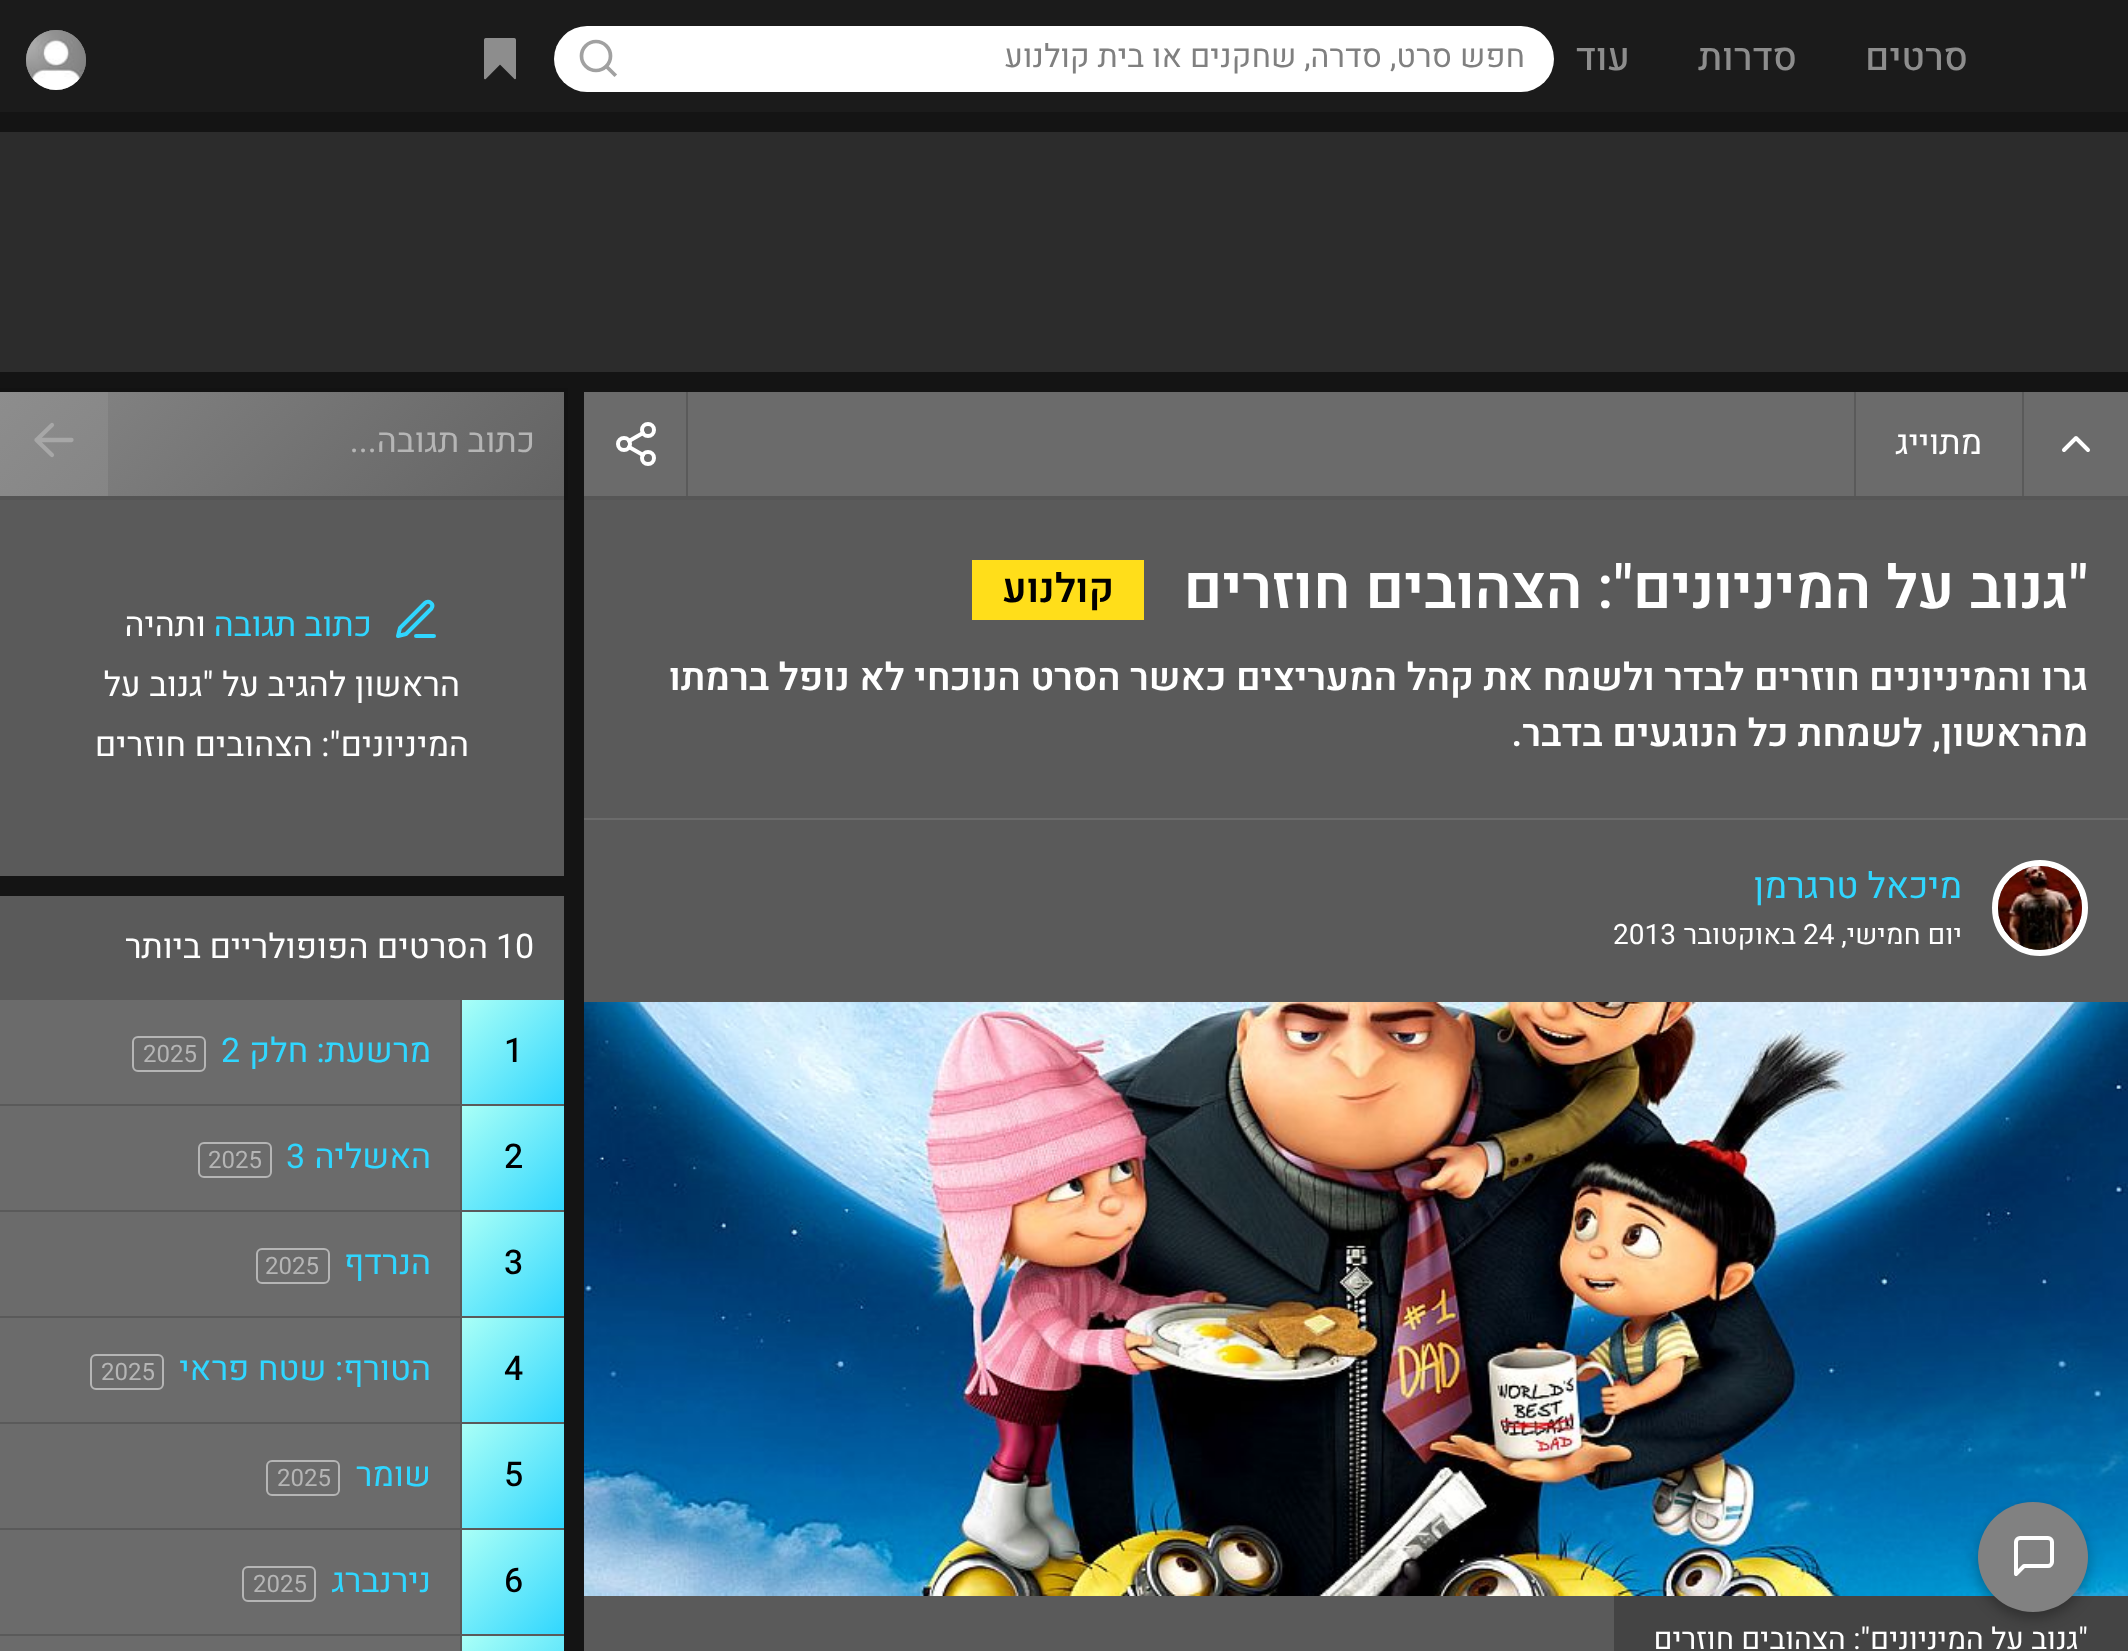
async function draw(canvas) {
  canvas.width = 2128
  canvas.height = 1651
  const ctx = canvas.getContext('2d')
  ctx.miterLimit = 4
  ctx.fontKerning = 'normal'
  async function loadImage(src) {
    const img = new Image()
    img.src = src
    await img.decode()
    return img
  }
  let gradient

  ctx.fillStyle = '#141414'
  ctx.fillRect(0, 0, 2128, 1651)
  ctx.fillStyle = '#1b1b1b'
  ctx.fillRect(0, 0, 2128, 112)
  ctx.direction = 'rtl'
  ctx.font = '500 38px Heebo'
  ctx.fillStyle = '#8d8d8d'
  ctx.fillText('סרטים', 1968, 70)
  ctx.fillText('סדרות', 1797, 70)
  ctx.fillText('עוד', 1630, 70)
  ctx.fillStyle = '#fff'
  ctx.beginPath()
  ctx.roundRect(554, 26, 1000, 66, 33)
  ctx.fill()
  ctx.beginPath()
  ctx.arc(596, 56, 14.5, 0, 2 * Math.PI)
  ctx.strokeStyle = '#a1a1a1'
  ctx.lineWidth = 3.7
  ctx.stroke()
  ctx.beginPath()
  ctx.moveTo(614.5, 74.5)
  ctx.lineTo(606.5, 66.5)
  ctx.lineCap = 'square'
  ctx.stroke()
  ctx.font = '32px Heebo'
  ctx.fillStyle = '#808080'
  ctx.fillText('חפש סרט, סדרה, שחקנים או בית קולנוע', 1525, 67)
  ctx.drawImage(await loadImage('image0.png'), 484, 38, 32, 42)
  ctx.fillStyle = '#8d8d8d'
  ctx.beginPath()
  ctx.arc(56, 60, 30, 0, 2 * Math.PI)
  ctx.fill()
  ctx.drawImage(await loadImage('image1.png'), 26, 30, 60, 60)
  ctx.fillStyle = '#2c2c2c'
  ctx.fillRect(0, 132, 2128, 240)
  ctx.fillStyle = '#5a5a5a'
  ctx.fillRect(584, 500, 1544, 1151)
  ctx.fillStyle = '#565656'
  ctx.fillRect(584, 496, 1544, 4)
  ctx.fillStyle = '#6b6b6b'
  ctx.fillRect(688, 392, 1440, 104)
  ctx.fillStyle = '#5a5a5a'
  ctx.fillRect(2022, 392, 2, 104)
  ctx.beginPath()
  ctx.moveTo(2064, 450)
  ctx.lineTo(2076, 438)
  ctx.lineTo(2088, 450)
  ctx.strokeStyle = '#fff'
  ctx.lineWidth = 4
  ctx.lineCap = 'round'
  ctx.lineJoin = 'round'
  ctx.stroke()
  ctx.fillRect(1854, 392, 2, 104)
  ctx.font = '34px Heebo'
  ctx.fillStyle = '#fff'
  ctx.fillText('מתוייג', 1982, 454)
  ctx.fillStyle = '#6b6b6b'
  ctx.fillRect(584, 392, 102, 104)
  ctx.beginPath()
  ctx.arc(648, 430, 6, 0, 2 * Math.PI)
  ctx.stroke()
  ctx.beginPath()
  ctx.arc(624, 444, 6, 0, 2 * Math.PI)
  ctx.stroke()
  ctx.beginPath()
  ctx.arc(648, 458, 6, 0, 2 * Math.PI)
  ctx.stroke()
  ctx.beginPath()
  ctx.moveTo(629, 447)
  ctx.lineTo(643, 455)
  ctx.moveTo(643, 433)
  ctx.lineTo(629, 441)
  ctx.stroke()
  ctx.fillStyle = '#5a5a5a'
  ctx.fillRect(686, 392, 2, 104)
  ctx.font = '600 60px Heebo'
  ctx.fillStyle = '#fff'
  ctx.fillText('"גנוב על המיניונים": הצהובים חוזרים', 2088, 608)
  ctx.fillStyle = '#ffde1a'
  ctx.fillRect(972, 560, 172, 60)
  ctx.font = '600 40px Heebo'
  ctx.fillStyle = '#000'
  ctx.fillText('קולנוע', 1114, 602)
  ctx.font = '600 38px Heebo'
  ctx.fillStyle = '#fff'
  ctx.fillText('גרו והמיניונים חוזרים לבדר ולשמח את קהל המעריצים כאשר הסרט הנוכחי לא נופל ברמתו', 2088, 690)
  ctx.fillText('מהראשון, לשמחת כל הנוגעים בדבר.', 2088, 746)
  ctx.fillStyle = '#6b6b6b'
  ctx.fillRect(584, 818, 1544, 2)
  ctx.beginPath()
  ctx.arc(2040, 908, 45, 0, 2 * Math.PI)
  ctx.lineWidth = 6
  ctx.stroke()
  ctx.drawImage(await loadImage('image2.png'), 1998, 866, 84, 84)
  ctx.font = '36px Heebo'
  ctx.fillStyle = '#30d6ff'
  ctx.fillText('מיכאל טרגרמן', 1962, 898)
  ctx.font = '28px Heebo'
  ctx.fillStyle = '#fff'
  ctx.fillText('יום חמישי,', 1962, 944)
  ctx.direction = 'ltr'
  ctx.fillText('24', 1803, 944)
  ctx.direction = 'rtl'
  ctx.fillText('באוקטובר', 1796, 944)
  ctx.direction = 'ltr'
  ctx.fillText('2013', 1613, 944)
  ctx.drawImage(await loadImage('image3.png'), 584, 1002, 1544, 594)
  ctx.fillStyle = '#444'
  ctx.fillRect(1614, 1596, 514, 55)
  ctx.direction = 'rtl'
  ctx.font = '30px Heebo'
  ctx.fillStyle = '#fff'
  ctx.fillText('"גנוב על המיניונים": הצהובים חוזרים', 2088, 1649)
  ctx.fillStyle = '#5a5a5a'
  ctx.fillRect(0, 496, 564, 380)
  ctx.strokeStyle = '#0000000d'
  ctx.lineWidth = 4
  ctx.lineJoin = 'miter'
  ctx.strokeRect(-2, 390, 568, 108)
  gradient = ctx.createLinearGradient(115, 277, 449, 611)
  gradient.addColorStop(0, '#868686')
  gradient.addColorStop(1, '#636363')
  ctx.fillStyle = gradient
  ctx.fillRect(108, 392, 456, 104)
  gradient = ctx.createLinearGradient(115, 277, 449, 611)
  gradient.addColorStop(0, '#8d8d8d')
  gradient.addColorStop(1, '#747474')
  ctx.fillStyle = gradient
  ctx.fillRect(0, 392, 108, 104)
  ctx.font = '34px Heebo'
  ctx.fillStyle = '#b5b5b5'
  ctx.fillText('כתוב תגובה...', 535, 452)
  ctx.beginPath()
  ctx.moveTo(52, 425)
  ctx.lineTo(36.5, 440)
  ctx.lineTo(52, 455)
  ctx.moveTo(36.5, 440)
  ctx.lineTo(71.5, 440)
  ctx.strokeStyle = '#a7a7a7'
  ctx.lineWidth = 4.3
  ctx.lineJoin = 'round'
  ctx.stroke()
  ctx.beginPath()
  ctx.moveTo(416, 636)
  ctx.lineTo(434, 636)
  ctx.moveTo(425, 603)
  ctx.bezierCurveTo(428.5, 599.5, 434.5, 604, 431.5, 608.5)
  ctx.lineTo(406, 634)
  ctx.lineTo(398, 636)
  ctx.lineTo(400, 628)
  ctx.closePath()
  ctx.strokeStyle = '#30d6ff'
  ctx.lineWidth = 4
  ctx.stroke()
  ctx.fillStyle = '#30d6ff'
  ctx.fillText('כתוב תגובה', 372, 636)
  ctx.fillStyle = '#fff'
  ctx.fillText('ותהיה', 206, 636)
  ctx.fillText('הראשון להגיב על "גנוב על', 460, 696)
  ctx.fillText('המיניונים": הצהובים חוזרים', 469, 756)
  ctx.fillStyle = '#0000004d'
  ctx.filter = 'blur(7px)'
  ctx.beginPath()
  ctx.roundRect(1978, 1508, 110, 110, 55)
  ctx.fill()
  ctx.filter = 'none'
  ctx.fillStyle = '#818181'
  ctx.beginPath()
  ctx.arc(2033, 1557, 55, 0, 2 * Math.PI)
  ctx.fill()
  ctx.beginPath()
  ctx.moveTo(2052, 1562)
  ctx.bezierCurveTo(2052, 1564, 2050, 1566, 2048, 1566)
  ctx.lineTo(2024, 1566)
  ctx.lineTo(2016, 1574)
  ctx.lineTo(2016, 1542)
  ctx.bezierCurveTo(2016, 1540, 2018, 1538, 2020, 1538)
  ctx.lineTo(2048, 1538)
  ctx.bezierCurveTo(2050, 1538, 2052, 1540, 2052, 1542)
  ctx.closePath()
  ctx.strokeStyle = '#fff'
  ctx.stroke()
  ctx.fillStyle = '#5a5a5a'
  ctx.fillRect(0, 896, 564, 740)
  ctx.direction = 'ltr'
  ctx.fillStyle = '#fff'
  ctx.fillText('10', 496, 958)
  ctx.direction = 'rtl'
  ctx.fillText('הסרטים הפופולריים ביותר', 488, 958)
  ctx.fillStyle = '#6b6b6b'
  ctx.fillRect(0, 1000, 460, 104)
  gradient = ctx.createLinearGradient(462, 1001, 565, 1104)
  gradient.addColorStop(0, '#a9fff7')
  gradient.addColorStop(1, '#30d6fe')
  ctx.fillStyle = gradient
  ctx.fillRect(462, 1000, 102, 104)
  ctx.direction = 'ltr'
  ctx.font = '500 34px Heebo'
  ctx.fillStyle = '#000'
  ctx.fillText('1', 504, 1062)
  ctx.direction = 'rtl'
  ctx.font = '34px Heebo'
  ctx.fillStyle = '#30d6ff'
  ctx.fillText('מרשעת: חלק', 431, 1062)
  ctx.direction = 'ltr'
  ctx.fillText('2', 221, 1062)
  ctx.beginPath()
  ctx.roundRect(133, 1037, 72, 34, 5)
  ctx.strokeStyle = '#b5b5b5'
  ctx.lineWidth = 2
  ctx.lineJoin = 'miter'
  ctx.stroke()
  ctx.font = '24px Heebo'
  ctx.fillStyle = '#b5b5b5'
  ctx.fillText('2025', 143, 1062)
  ctx.fillStyle = '#6b6b6b'
  ctx.fillRect(0, 1106, 460, 104)
  gradient = ctx.createLinearGradient(462, 1107, 565, 1210)
  gradient.addColorStop(0, '#a9fff7')
  gradient.addColorStop(1, '#30d6fe')
  ctx.fillStyle = gradient
  ctx.fillRect(462, 1106, 102, 104)
  ctx.font = '500 34px Heebo'
  ctx.fillStyle = '#000'
  ctx.fillText('2', 504, 1168)
  ctx.direction = 'rtl'
  ctx.font = '34px Heebo'
  ctx.fillStyle = '#30d6ff'
  ctx.fillText('האשליה', 431, 1168)
  ctx.direction = 'ltr'
  ctx.fillText('3', 286, 1168)
  ctx.beginPath()
  ctx.roundRect(199, 1143, 72, 34, 5)
  ctx.stroke()
  ctx.font = '24px Heebo'
  ctx.fillStyle = '#b5b5b5'
  ctx.fillText('2025', 208, 1168)
  ctx.fillStyle = '#6b6b6b'
  ctx.fillRect(0, 1212, 460, 104)
  gradient = ctx.createLinearGradient(462, 1213, 565, 1316)
  gradient.addColorStop(0, '#a9fff7')
  gradient.addColorStop(1, '#30d6fe')
  ctx.fillStyle = gradient
  ctx.fillRect(462, 1212, 102, 104)
  ctx.font = '500 34px Heebo'
  ctx.fillStyle = '#000'
  ctx.fillText('3', 504, 1274)
  ctx.direction = 'rtl'
  ctx.font = '34px Heebo'
  ctx.fillStyle = '#30d6ff'
  ctx.fillText('הנרדף', 431, 1274)
  ctx.beginPath()
  ctx.roundRect(257, 1249, 72, 34, 5)
  ctx.stroke()
  ctx.direction = 'ltr'
  ctx.font = '24px Heebo'
  ctx.fillStyle = '#b5b5b5'
  ctx.fillText('2025', 265, 1274)
  ctx.fillStyle = '#6b6b6b'
  ctx.fillRect(0, 1318, 460, 104)
  gradient = ctx.createLinearGradient(462, 1319, 565, 1422)
  gradient.addColorStop(0, '#a9fff7')
  gradient.addColorStop(1, '#30d6fe')
  ctx.fillStyle = gradient
  ctx.fillRect(462, 1318, 102, 104)
  ctx.font = '500 34px Heebo'
  ctx.fillStyle = '#000'
  ctx.fillText('4', 504, 1380)
  ctx.direction = 'rtl'
  ctx.font = '34px Heebo'
  ctx.fillStyle = '#30d6ff'
  ctx.fillText('הטורף: שטח פראי', 431, 1380)
  ctx.beginPath()
  ctx.roundRect(91, 1355, 72, 34, 5)
  ctx.stroke()
  ctx.direction = 'ltr'
  ctx.font = '24px Heebo'
  ctx.fillStyle = '#b5b5b5'
  ctx.fillText('2025', 101, 1380)
  ctx.fillStyle = '#6b6b6b'
  ctx.fillRect(0, 1424, 460, 104)
  gradient = ctx.createLinearGradient(462, 1425, 565, 1528)
  gradient.addColorStop(0, '#a9fff7')
  gradient.addColorStop(1, '#30d6fe')
  ctx.fillStyle = gradient
  ctx.fillRect(462, 1424, 102, 104)
  ctx.font = '500 34px Heebo'
  ctx.fillStyle = '#000'
  ctx.fillText('5', 504, 1486)
  ctx.direction = 'rtl'
  ctx.font = '34px Heebo'
  ctx.fillStyle = '#30d6ff'
  ctx.fillText('שומר', 431, 1486)
  ctx.beginPath()
  ctx.roundRect(267, 1461, 72, 34, 5)
  ctx.stroke()
  ctx.direction = 'ltr'
  ctx.font = '24px Heebo'
  ctx.fillStyle = '#b5b5b5'
  ctx.fillText('2025', 277, 1486)
  ctx.fillStyle = '#6b6b6b'
  ctx.fillRect(0, 1530, 460, 104)
  gradient = ctx.createLinearGradient(462, 1531, 565, 1634)
  gradient.addColorStop(0, '#a9fff7')
  gradient.addColorStop(1, '#30d6fe')
  ctx.fillStyle = gradient
  ctx.fillRect(462, 1530, 102, 104)
  ctx.font = '500 34px Heebo'
  ctx.fillStyle = '#000'
  ctx.fillText('6', 504, 1592)
  ctx.direction = 'rtl'
  ctx.font = '34px Heebo'
  ctx.fillStyle = '#30d6ff'
  ctx.fillText('נירנברג', 431, 1592)
  ctx.beginPath()
  ctx.roundRect(243, 1567, 72, 34, 5)
  ctx.stroke()
  ctx.direction = 'ltr'
  ctx.font = '24px Heebo'
  ctx.fillStyle = '#b5b5b5'
  ctx.fillText('2025', 253, 1592)
  ctx.fillStyle = '#6b6b6b'
  ctx.fillRect(0, 1636, 460, 15)
  gradient = ctx.createLinearGradient(462, 1637, 565, 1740)
  gradient.addColorStop(0, '#a9fff7')
  gradient.addColorStop(1, '#30d6fe')
  ctx.fillStyle = gradient
  ctx.fillRect(462, 1636, 102, 15)
  ctx.fillStyle = '#5a5a5a'
  ctx.fillRect(460, 1636, 2, 15)
}

draw(document.querySelector('canvas'))
